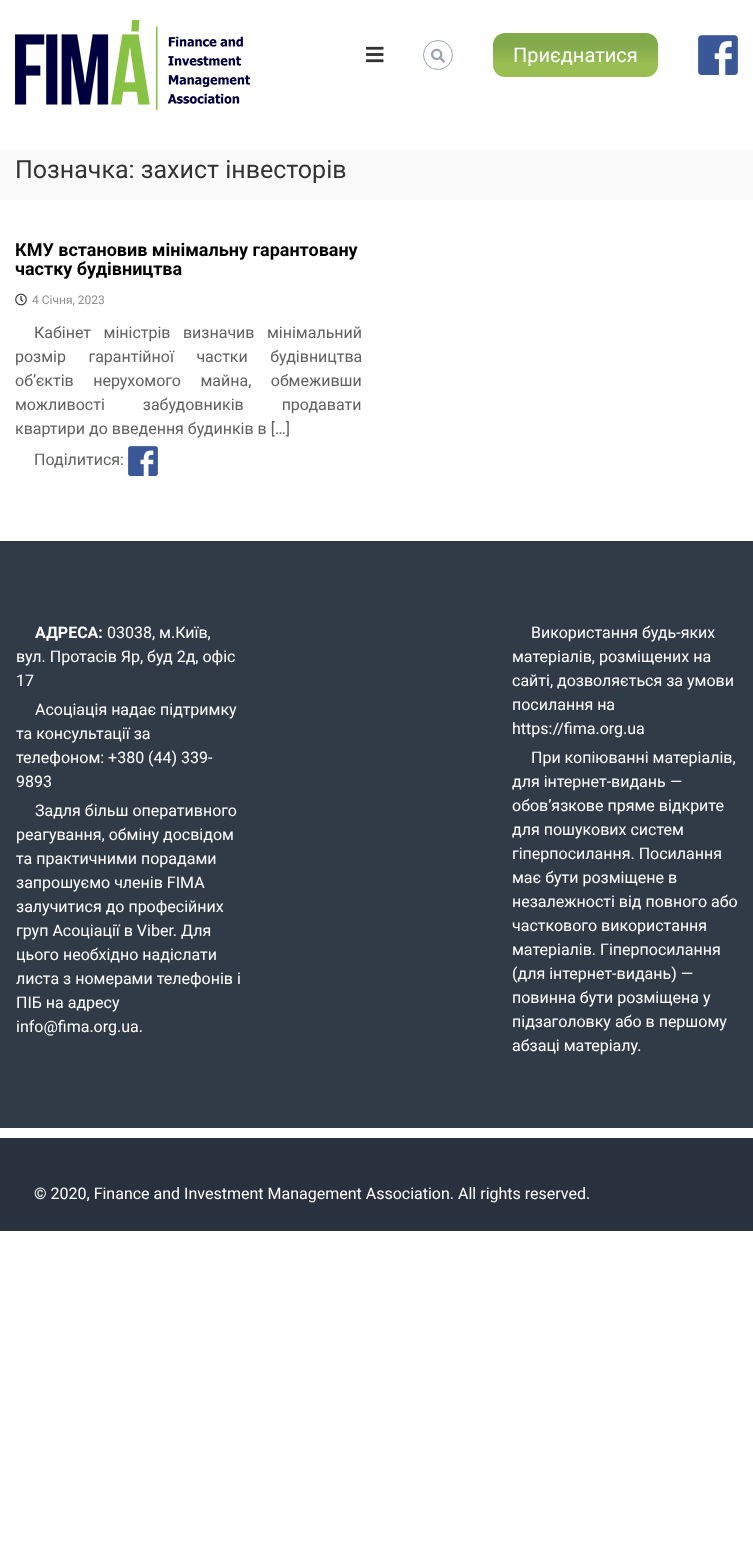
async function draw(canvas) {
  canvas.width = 753
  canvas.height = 1541
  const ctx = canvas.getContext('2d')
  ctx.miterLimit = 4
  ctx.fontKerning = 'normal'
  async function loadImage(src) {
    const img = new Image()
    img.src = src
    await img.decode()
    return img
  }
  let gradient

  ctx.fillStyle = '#fff'
  ctx.fillRect(0, 0, 753, 1541)
  ctx.drawImage(await loadImage('image0.png'), 15, 20, 235, 90)
  ctx.drawImage(await loadImage('image1.png'), 366, 46, 18, 17)
  ctx.beginPath()
  ctx.arc(438, 55, 14.5, 0, 2 * Math.PI)
  ctx.strokeStyle = '#9ca6b2'
  ctx.stroke()
  ctx.drawImage(await loadImage('image2.png'), 431, 48, 14, 15)
  gradient = ctx.createLinearGradient(576, 77, 576, 33)
  gradient.addColorStop(0.3, '#9abe52')
  gradient.addColorStop(0.7, '#82aa4b')
  ctx.fillStyle = gradient
  ctx.beginPath()
  ctx.roundRect(493, 33, 165, 44, 12)
  ctx.fill()
  ctx.font = '20px Roboto'
  ctx.fillStyle = '#fff'
  ctx.fillText('Приєднатися', 513, 62)
  ctx.drawImage(await loadImage('image3.png'), 698, 35, 40, 40)
  ctx.fillStyle = '#fafafa'
  ctx.fillRect(0, 150, 753, 50)
  ctx.font = '25px Roboto'
  ctx.fillStyle = '#333'
  ctx.fillText('Позначка: захист інвесторів', 15, 178)
  ctx.font = 'bold 18px Roboto'
  ctx.fillStyle = '#000'
  ctx.fillText('КМУ встановив мінімальну гарантовану', 15, 256)
  ctx.fillText('частку будівництва', 15, 275)
  ctx.drawImage(await loadImage('image4.png'), 15, 293, 12, 13)
  ctx.font = '12px Roboto'
  ctx.fillStyle = '#8e8e8e'
  ctx.fillText('4 Січня, 2023', 32, 304)
  ctx.wordSpacing = '8.5px'
  ctx.font = '16px Roboto'
  ctx.fillStyle = '#606060'
  ctx.fillText('Кабінет міністрів визначив мінімальний', 34, 338)
  ctx.wordSpacing = '18.5px'
  ctx.fillText('розмір гарантійної частки будівництва', 15, 362)
  ctx.wordSpacing = '15.5px'
  ctx.fillText('обʼєктів нерухомого майна, обмеживши', 15, 386)
  ctx.wordSpacing = '34px'
  ctx.fillText('можливості забудовників продавати', 15, 410)
  ctx.wordSpacing = '0px'
  ctx.fillText('квартири до введення будинків в […]', 15, 434)
  ctx.fillText('Поділитися:', 34, 465)
  ctx.drawImage(await loadImage('image5.png'), 128, 446, 30, 30)
  ctx.fillStyle = '#313b48'
  ctx.fillRect(0, 541, 753, 587)
  ctx.font = 'bold 16px Roboto'
  ctx.fillStyle = '#fff'
  ctx.fillText('АДРЕСА:', 35, 638)
  ctx.font = '16px Roboto'
  ctx.fillText('03038, м.Київ,', 107, 638)
  ctx.fillText('вул. Протасів Яр, буд 2д, офіс', 16, 662)
  ctx.fillText('17', 16, 686)
  ctx.fillText('Асоціація надає підтримку', 35, 715)
  ctx.fillText('та консультації за', 16, 739)
  ctx.fillText('телефоном: +380 (44) 339-', 16, 763)
  ctx.fillText('9893', 16, 787)
  ctx.fillText('Задля більш оперативного', 35, 816)
  ctx.fillText('реагування, обміну досвідом', 16, 840)
  ctx.fillText('та практичними порадами', 16, 864)
  ctx.fillText('запрошуємо членів FIMA', 16, 888)
  ctx.fillText('залучитися до професійних', 16, 912)
  ctx.fillText('груп Асоціації в Viber. Для', 16, 936)
  ctx.fillText('цього необхідно надіслати', 16, 960)
  ctx.fillText('листа з номерами телефонів і', 16, 984)
  ctx.fillText('ПІБ на адресу', 16, 1008)
  ctx.fillText('info@fima.org.ua.', 16, 1032)
  ctx.fillText('Використання будь-яких', 531, 638)
  ctx.fillText('матеріалів, розміщених на', 512, 662)
  ctx.fillText('сайті, дозволяється за умови', 512, 686)
  ctx.fillText('посилання на', 512, 710)
  ctx.fillText('https://fima.org.ua', 512, 734)
  ctx.fillText('При копіюванні матеріалів,', 531, 763)
  ctx.fillText('для інтернет-видань —', 512, 787)
  ctx.fillText('обов’язкове пряме відкрите', 512, 811)
  ctx.fillText('для пошукових систем', 512, 835)
  ctx.fillText('гіперпосилання. Посилання', 512, 859)
  ctx.fillText('має бути розміщене в', 512, 883)
  ctx.fillText('незалежності від повного або', 512, 907)
  ctx.fillText('часткового використання', 512, 931)
  ctx.fillText('матеріалів. Гіперпосилання', 512, 955)
  ctx.fillText('(для інтернет-видань) —', 512, 979)
  ctx.fillText('повинна бути розміщена у', 512, 1003)
  ctx.fillText('підзаголовку або в першому', 512, 1027)
  ctx.fillText('абзаці матеріалу.', 512, 1051)
  ctx.fillStyle = '#28313d'
  ctx.fillRect(0, 1138, 753, 93)
  ctx.fillStyle = '#fff'
  ctx.fillText('© 2020, Finance and Investment Management Association. All rights reserved.', 34, 1199)
}

draw(document.querySelector('canvas'))
